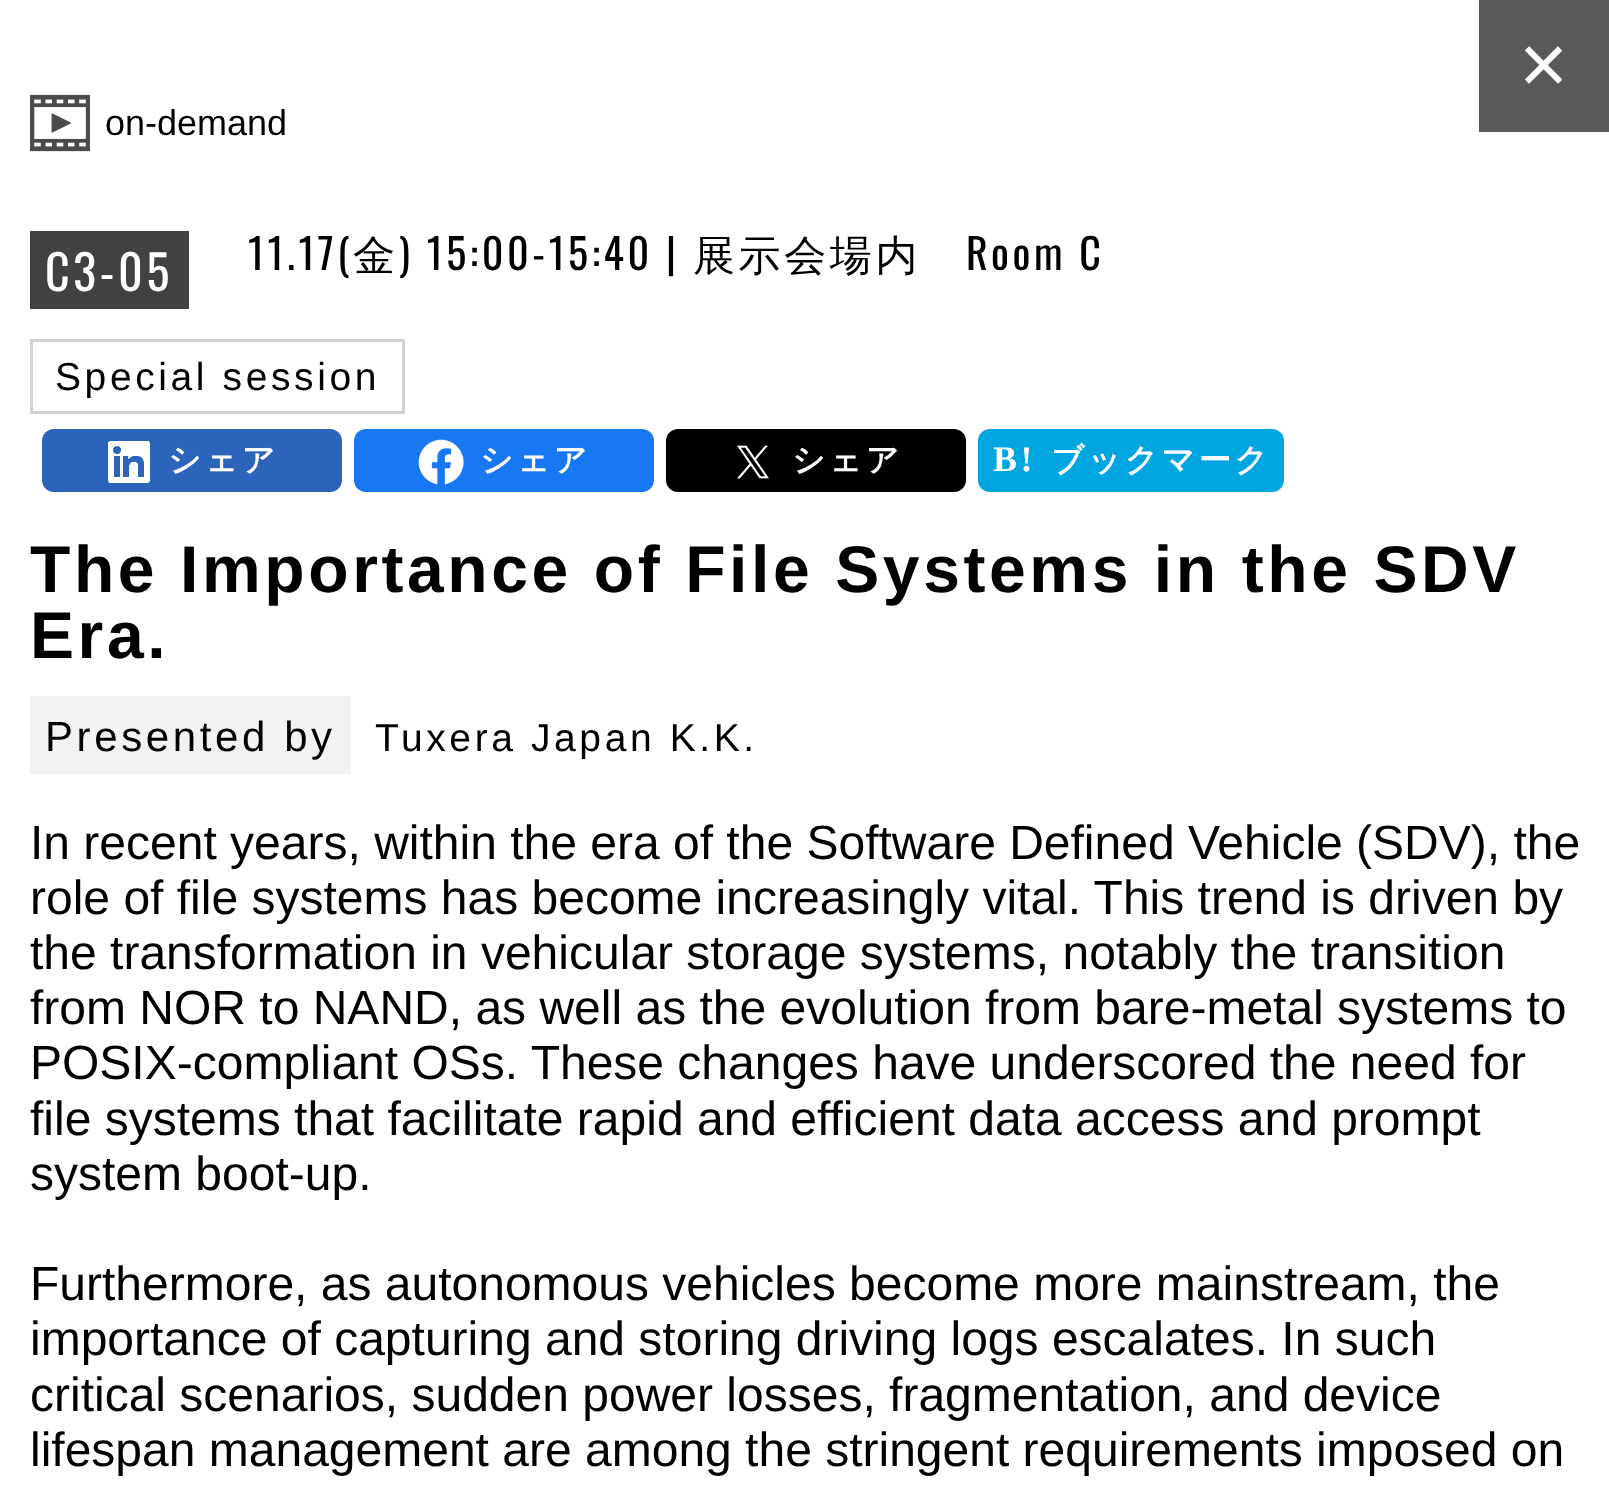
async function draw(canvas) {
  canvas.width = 1609
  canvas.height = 1491
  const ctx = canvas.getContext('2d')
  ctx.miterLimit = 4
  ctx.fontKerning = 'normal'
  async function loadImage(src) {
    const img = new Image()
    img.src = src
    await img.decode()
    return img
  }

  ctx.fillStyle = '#fff'
  ctx.fillRect(0, 0, 1609, 1491)
  ctx.fillStyle = '#595959'
  ctx.fillRect(1479, 0, 130, 132)
  ctx.letterSpacing = '3.6px'
  ctx.font = '84px Liberation Sans'
  ctx.fillStyle = '#fff'
  ctx.fillText('×', 1519, 93)
  ctx.fillStyle = '#414042'
  ctx.fillRect(30, 231, 159, 78)
  ctx.font = '48px Oswald'
  ctx.fillStyle = '#fff'
  ctx.fillText('C3-05', 45, 291)
  ctx.font = '42px Oswald'
  ctx.fillStyle = '#000'
  ctx.fillText('11.17(', 248, 270)
  ctx.font = '500 42px WenQuanYi Zen Hei'
  ctx.fillText('金', 353, 270)
  ctx.font = '42px Oswald'
  ctx.fillText(') 15:00-15:40 |', 399, 270)
  ctx.font = '500 42px WenQuanYi Zen Hei'
  ctx.fillText('展示会場内', 693, 270)
  ctx.font = '42px Oswald'
  ctx.fillText('Room C', 966, 270)
  ctx.strokeStyle = '#d1d3d4'
  ctx.lineWidth = 3
  ctx.strokeRect(31.5, 340.5, 372, 72)
  ctx.font = '39px Liberation Sans'
  ctx.fillText('Special session', 55, 390)
  ctx.fillStyle = '#2c64bc'
  ctx.beginPath()
  ctx.roundRect(42, 429, 300, 63, 12)
  ctx.fill()
  ctx.drawImage(await loadImage('image0.png'), 108, 441, 42, 42)
  ctx.font = 'bold 32.5px WenQuanYi Zen Hei'
  ctx.fillStyle = '#fff'
  ctx.fillText('シェア', 168, 471)
  ctx.fillStyle = '#1877f2'
  ctx.beginPath()
  ctx.roundRect(354, 429, 300, 63, 12)
  ctx.fill()
  ctx.drawImage(await loadImage('image1.png'), 418, 439, 46, 46)
  ctx.fillStyle = '#fff'
  ctx.fillText('シェア', 480, 471)
  ctx.fillStyle = '#000'
  ctx.beginPath()
  ctx.roundRect(666, 429, 300, 63, 12)
  ctx.fill()
  ctx.drawImage(await loadImage('image2.png'), 737, 445, 32, 34)
  ctx.fillStyle = '#fff'
  ctx.fillText('シェア', 792, 471)
  ctx.fillStyle = '#01a5df'
  ctx.beginPath()
  ctx.roundRect(978, 429, 306, 63, 12)
  ctx.fill()
  ctx.font = 'bold 36px Liberation Serif'
  ctx.fillStyle = '#fff'
  ctx.fillText('B!', 993, 471)
  ctx.font = 'bold 32.5px WenQuanYi Zen Hei'
  ctx.fillText('ブックマーク', 1051, 471)
  ctx.drawImage(await loadImage('image3.png'), 30, 94, 60, 58)
  ctx.letterSpacing = '0px'
  ctx.font = '36px Liberation Sans'
  ctx.fillStyle = '#000'
  ctx.fillText('on-demand', 105, 135)
  ctx.letterSpacing = '3.6px'
  ctx.font = 'bold 66px Liberation Sans'
  ctx.fillText('The Importance of File Systems in the SDV', 30, 592)
  ctx.fillText('Era.', 30, 658)
  ctx.fillStyle = '#f2f2f2'
  ctx.fillRect(30, 696, 321, 78)
  ctx.font = '42px Liberation Sans'
  ctx.fillStyle = '#000'
  ctx.fillText('Presented by', 45, 751)
  ctx.font = '39px Liberation Sans'
  ctx.fillText('Tuxera Japan K.K.', 375, 751)
  ctx.letterSpacing = '0px'
  ctx.font = '48px Liberation Sans'
  ctx.fillText('In recent years, within the era of the Software Defined Vehicle (SDV), the', 30, 859)
  ctx.fillText('role of file systems has become increasingly vital. This trend is driven by', 30, 914)
  ctx.fillText('the transformation in vehicular storage systems, notably the transition', 30, 969)
  ctx.fillText('from NOR to NAND, as well as the evolution from bare-metal systems to', 30, 1024)
  ctx.fillText('POSIX-compliant OSs. These changes have underscored the need for', 30, 1079)
  ctx.fillText('file systems that facilitate rapid and efficient data access and prompt', 30, 1135)
  ctx.fillText('system boot-up.', 30, 1190)
  ctx.fillText('Furthermore, as autonomous vehicles become more mainstream, the', 30, 1300)
  ctx.fillText('importance of capturing and storing driving logs escalates. In such', 30, 1355)
  ctx.fillText('critical scenarios, sudden power losses, fragmentation, and device', 30, 1411)
  ctx.fillText('lifespan management are among the stringent requirements imposed on', 30, 1466)
}

draw(document.querySelector('canvas'))
